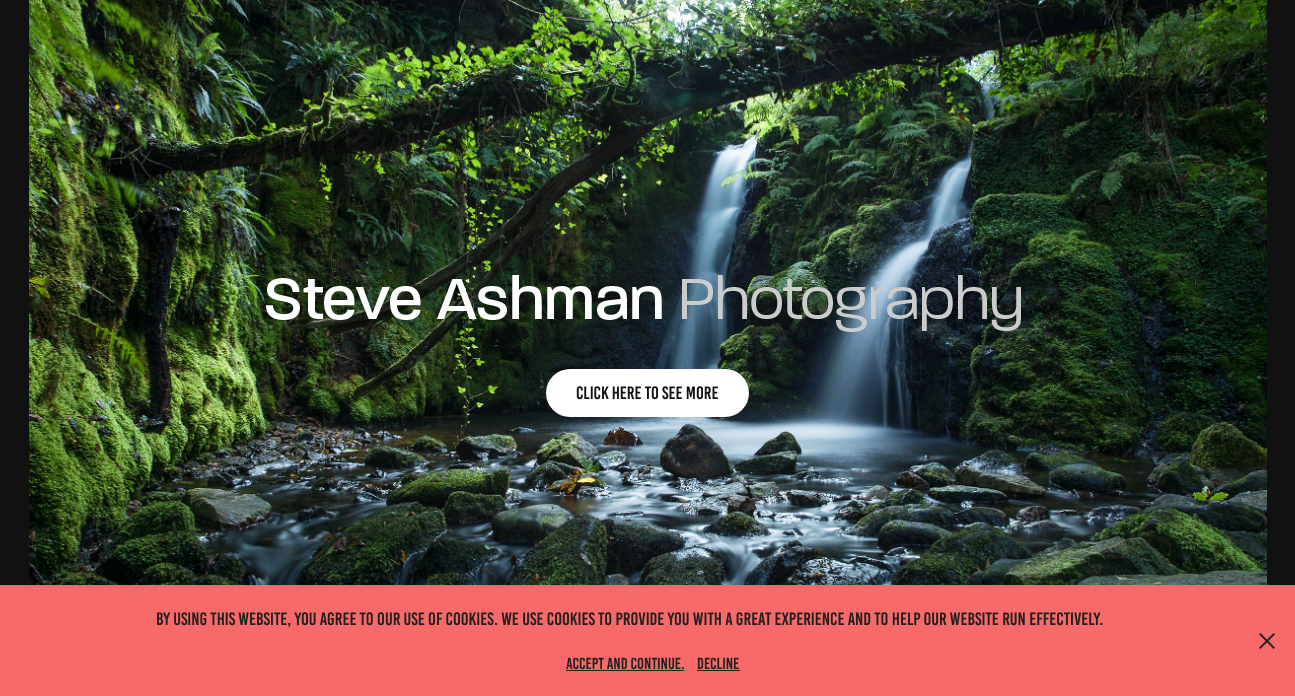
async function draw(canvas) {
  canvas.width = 1295
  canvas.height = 696
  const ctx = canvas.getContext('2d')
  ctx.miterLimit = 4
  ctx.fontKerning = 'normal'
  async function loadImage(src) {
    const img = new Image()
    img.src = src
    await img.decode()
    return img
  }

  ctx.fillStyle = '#111'
  ctx.fillRect(0, 0, 1295, 696)
  ctx.drawImage(await loadImage('image0.png'), 29, 0, 1238, 585)
  ctx.drawImage(await loadImage('image1.png'), 266, 275, 755, 57)
  ctx.fillStyle = '#fff'
  ctx.beginPath()
  ctx.roundRect(546, 369, 203, 48, 24)
  ctx.fill()
  ctx.font = '18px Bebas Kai'
  ctx.fillStyle = '#111'
  ctx.fillText('click here to see more', 576, 399)
  ctx.fillStyle = '#f86a6a'
  ctx.fillRect(0, 585, 1295, 111)
  ctx.fillStyle = '#212121'
  ctx.fillText('By using this website, you agree to our use of cookies. We use cookies to provide you with a great experience and to help our website run effectively.', 156, 625)
  ctx.drawImage(await loadImage('image2.png'), 1259, 633, 16, 16)
  ctx.font = '16px Bebas Kai'
  ctx.fillText('Accept and continue.', 566, 669)
  ctx.fillRect(566, 670, 118, 1)
  ctx.fillText('Decline', 697, 669)
  ctx.fillRect(697, 670, 43, 1)
}

draw(document.querySelector('canvas'))
